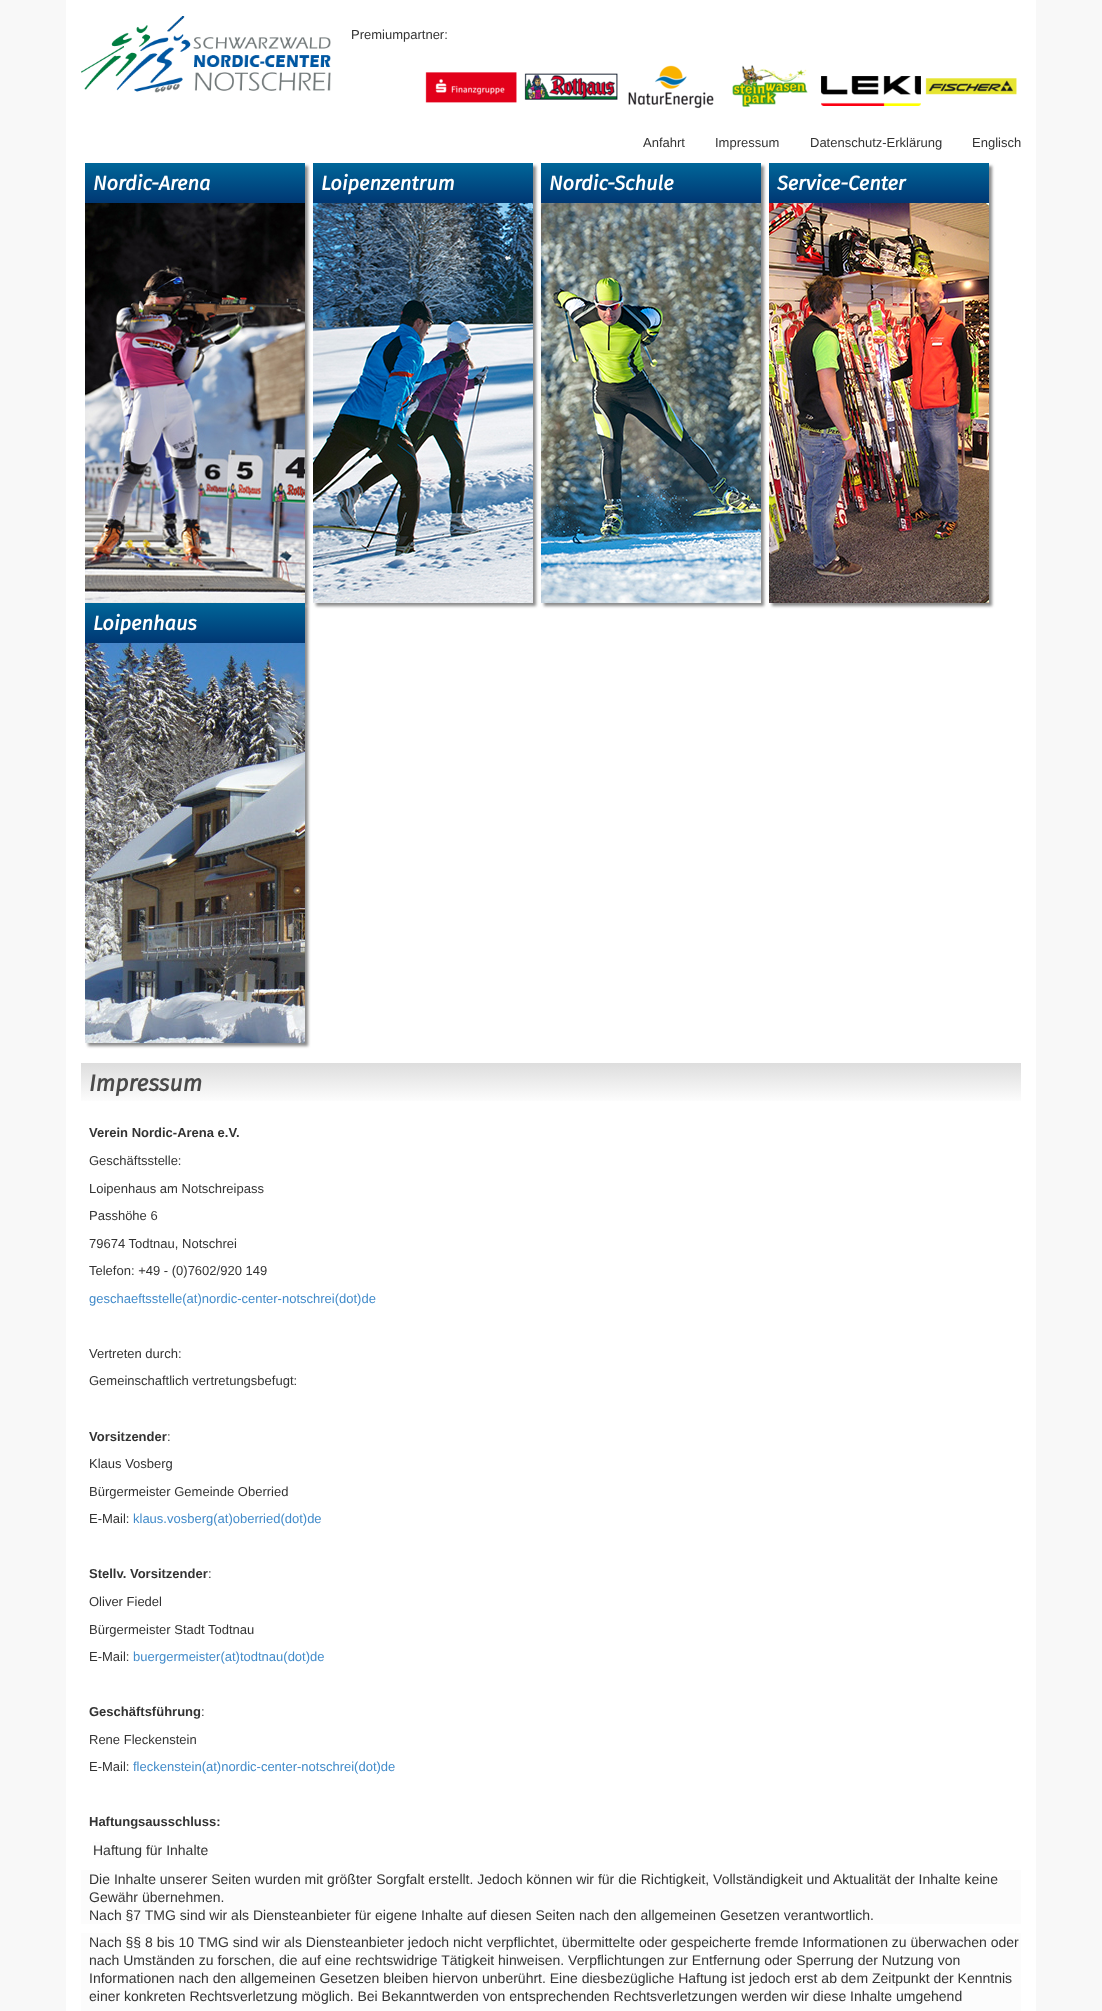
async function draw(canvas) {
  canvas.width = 1102
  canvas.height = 2011
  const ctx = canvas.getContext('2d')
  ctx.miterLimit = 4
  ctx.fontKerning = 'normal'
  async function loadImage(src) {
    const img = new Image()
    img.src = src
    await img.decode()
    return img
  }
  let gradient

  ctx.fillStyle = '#f8f8f8'
  ctx.fillRect(0, 0, 1102, 2011)
  ctx.fillStyle = '#fff'
  ctx.fillRect(66, 0, 970, 2011)
  ctx.drawImage(await loadImage('image0.png'), 81, 16, 250, 77)
  ctx.font = '13px Liberation Sans'
  ctx.fillStyle = '#333'
  ctx.fillText('Premiumpartner:', 351, 39)
  ctx.drawImage(await loadImage('image1.png'), 425, 72, 92, 31)
  ctx.drawImage(await loadImage('image2.png'), 524, 73, 94, 27)
  ctx.drawImage(await loadImage('image3.png'), 628, 65, 86, 44)
  ctx.drawImage(await loadImage('image4.png'), 732, 65, 76, 42)
  ctx.drawImage(await loadImage('image5.png'), 821, 76, 100, 30)
  ctx.drawImage(await loadImage('image6.png'), 925, 78, 92, 17)
  ctx.fillText('Anfahrt', 643, 147)
  ctx.fillText('Impressum', 715, 147)
  ctx.fillText('Datenschutz-Erklärung', 810, 147)
  ctx.fillText('Englisch', 972, 147)
  ctx.fillStyle = '#646464bf'
  ctx.filter = 'blur(1.5px)'
  ctx.beginPath()
  ctx.rect(88, 166, 220, 440)
  ctx.fill()
  ctx.filter = 'none'
  gradient = ctx.createLinearGradient(195, 163, 195, 203)
  gradient.addColorStop(0, '#069')
  gradient.addColorStop(1, '#003773')
  ctx.fillStyle = gradient
  ctx.fillRect(85, 163, 220, 40)
  ctx.font = 'italic bold 20px Fira Sans'
  ctx.fillStyle = '#fff'
  ctx.fillText('Nordic-Arena', 93, 190)
  ctx.drawImage(await loadImage('image7.png'), 85, 203, 220, 400)
  ctx.fillStyle = '#646464bf'
  ctx.filter = 'blur(1.5px)'
  ctx.beginPath()
  ctx.rect(316, 166, 220, 440)
  ctx.fill()
  ctx.filter = 'none'
  gradient = ctx.createLinearGradient(423, 163, 423, 203)
  gradient.addColorStop(0, '#069')
  gradient.addColorStop(1, '#003773')
  ctx.fillStyle = gradient
  ctx.fillRect(313, 163, 220, 40)
  ctx.fillStyle = '#fff'
  ctx.fillText('Loipenzentrum', 321, 190)
  ctx.drawImage(await loadImage('image8.png'), 313, 203, 220, 400)
  ctx.fillStyle = '#646464bf'
  ctx.filter = 'blur(1.5px)'
  ctx.beginPath()
  ctx.rect(544, 166, 220, 440)
  ctx.fill()
  ctx.filter = 'none'
  gradient = ctx.createLinearGradient(651, 163, 651, 203)
  gradient.addColorStop(0, '#069')
  gradient.addColorStop(1, '#003773')
  ctx.fillStyle = gradient
  ctx.fillRect(541, 163, 220, 40)
  ctx.fillStyle = '#fff'
  ctx.fillText('Nordic-Schule', 549, 190)
  ctx.drawImage(await loadImage('image9.png'), 541, 203, 220, 400)
  ctx.fillStyle = '#646464bf'
  ctx.filter = 'blur(1.5px)'
  ctx.beginPath()
  ctx.rect(772, 166, 220, 440)
  ctx.fill()
  ctx.filter = 'none'
  gradient = ctx.createLinearGradient(879, 163, 879, 203)
  gradient.addColorStop(0, '#069')
  gradient.addColorStop(1, '#003773')
  ctx.fillStyle = gradient
  ctx.fillRect(769, 163, 220, 40)
  ctx.fillStyle = '#fff'
  ctx.fillText('Service-Center', 777, 190)
  ctx.drawImage(await loadImage('image10.png'), 769, 203, 220, 400)
  ctx.fillStyle = '#646464bf'
  ctx.filter = 'blur(1.5px)'
  ctx.beginPath()
  ctx.rect(88, 606, 220, 440)
  ctx.fill()
  ctx.filter = 'none'
  gradient = ctx.createLinearGradient(195, 603, 195, 643)
  gradient.addColorStop(0, '#069')
  gradient.addColorStop(1, '#003773')
  ctx.fillStyle = gradient
  ctx.fillRect(85, 603, 220, 40)
  ctx.fillStyle = '#fff'
  ctx.fillText('Loipenhaus', 93, 630)
  ctx.drawImage(await loadImage('image11.png'), 85, 643, 220, 400)
  gradient = ctx.createLinearGradient(551, 1063, 551, 1104)
  gradient.addColorStop(0, '#ddd')
  gradient.addColorStop(1, '#fff')
  ctx.fillStyle = gradient
  ctx.fillRect(81, 1063, 940, 38)
  ctx.font = 'italic bold 23px Fira Sans'
  ctx.fillStyle = '#4b4b4b'
  ctx.fillText('Impressum', 89, 1091)
  ctx.font = 'bold 13px Liberation Sans'
  ctx.fillStyle = '#333'
  ctx.fillText('Verein Nordic-Arena e.V.', 89, 1137)
  ctx.font = '13px Liberation Sans'
  ctx.fillText('Geschäftsstelle:', 89, 1165)
  ctx.fillText('Loipenhaus am Notschreipass', 89, 1193)
  ctx.fillText('Passhöhe 6', 89, 1220)
  ctx.fillText('79674 Todtnau, Notschrei', 89, 1248)
  ctx.fillText('Telefon: +49 - (0)7602/920 149', 89, 1275)
  ctx.fillStyle = '#428bca'
  ctx.fillText('geschaeftsstelle(at)nordic-center-notschrei(dot)de', 89, 1303)
  ctx.fillStyle = '#333'
  ctx.fillText('Vertreten durch:', 89, 1358)
  ctx.fillText('Gemeinschaftlich vertretungsbefugt:', 89, 1385)
  ctx.font = 'bold 13px Liberation Sans'
  ctx.fillText('Vorsitzender', 89, 1441)
  ctx.font = '13px Liberation Sans'
  ctx.fillText(':', 167, 1441)
  ctx.fillText('Klaus Vosberg', 89, 1468)
  ctx.fillText('Bürgermeister Gemeinde Oberried', 89, 1496)
  ctx.fillText('E-Mail:', 89, 1523)
  ctx.fillStyle = '#428bca'
  ctx.fillText('klaus.vosberg(at)oberried(dot)de', 133, 1523)
  ctx.font = 'bold 13px Liberation Sans'
  ctx.fillStyle = '#333'
  ctx.fillText('Stellv. Vorsitzender', 89, 1578)
  ctx.font = '13px Liberation Sans'
  ctx.fillText(':', 208, 1578)
  ctx.fillText('Oliver Fiedel', 89, 1606)
  ctx.fillText('Bürgermeister Stadt Todtnau', 89, 1634)
  ctx.fillText('E-Mail:', 89, 1661)
  ctx.fillStyle = '#428bca'
  ctx.fillText('buergermeister(at)todtnau(dot)de', 133, 1661)
  ctx.font = 'bold 13px Liberation Sans'
  ctx.fillStyle = '#333'
  ctx.fillText('Geschäftsführung', 89, 1716)
  ctx.font = '13px Liberation Sans'
  ctx.fillText(':', 201, 1716)
  ctx.fillText('Rene Fleckenstein', 89, 1744)
  ctx.fillText('E-Mail:', 89, 1771)
  ctx.fillStyle = '#428bca'
  ctx.fillText('fleckenstein(at)nordic-center-notschrei(dot)de', 133, 1771)
  ctx.font = 'bold 13px Liberation Sans'
  ctx.fillStyle = '#333'
  ctx.fillText('Haftungsausschluss:', 89, 1826)
  ctx.fillStyle = '#fcfcfc'
  ctx.fillRect(93, 1842, 115, 16)
  ctx.font = '14px Liberation Sans'
  ctx.fillStyle = '#333'
  ctx.fillText('Haftung für Inhalte', 93, 1855)
  ctx.fillStyle = '#fcfcfc'
  ctx.fillRect(81, 1870, 940, 54)
  ctx.fillStyle = '#333'
  ctx.fillText('Die Inhalte unserer Seiten wurden mit größter Sorgfalt erstellt. Jedoch können wir für die Richtigkeit, Vollständigkeit und Aktualität der Inhalte keine', 89, 1884)
  ctx.fillText('Gewähr übernehmen.', 89, 1902)
  ctx.fillText('Nach §7 TMG sind wir als Diensteanbieter für eigene Inhalte auf diesen Seiten nach den allgemeinen Gesetzen verantwortlich.', 89, 1920)
  ctx.fillStyle = '#fcfcfc'
  ctx.fillRect(81, 1933, 940, 78)
  ctx.fillStyle = '#333'
  ctx.fillText('Nach §§ 8 bis 10 TMG sind wir als Diensteanbieter jedoch nicht verpflichtet, übermittelte oder gespeicherte fremde Informationen zu überwachen oder', 89, 1947)
  ctx.fillText('nach Umständen zu forschen, die auf eine rechtswidrige Tätigkeit hinweisen. Verpflichtungen zur Entfernung oder Sperrung der Nutzung von', 89, 1965)
  ctx.fillText('Informationen nach den allgemeinen Gesetzen bleiben hiervon unberührt. Eine diesbezügliche Haftung ist jedoch erst ab dem Zeitpunkt der Kenntnis', 89, 1983)
  ctx.fillText('einer konkreten Rechtsverletzung möglich. Bei Bekanntwerden von entsprechenden Rechtsverletzungen werden wir diese Inhalte umgehend', 89, 2001)
}

draw(document.querySelector('canvas'))
